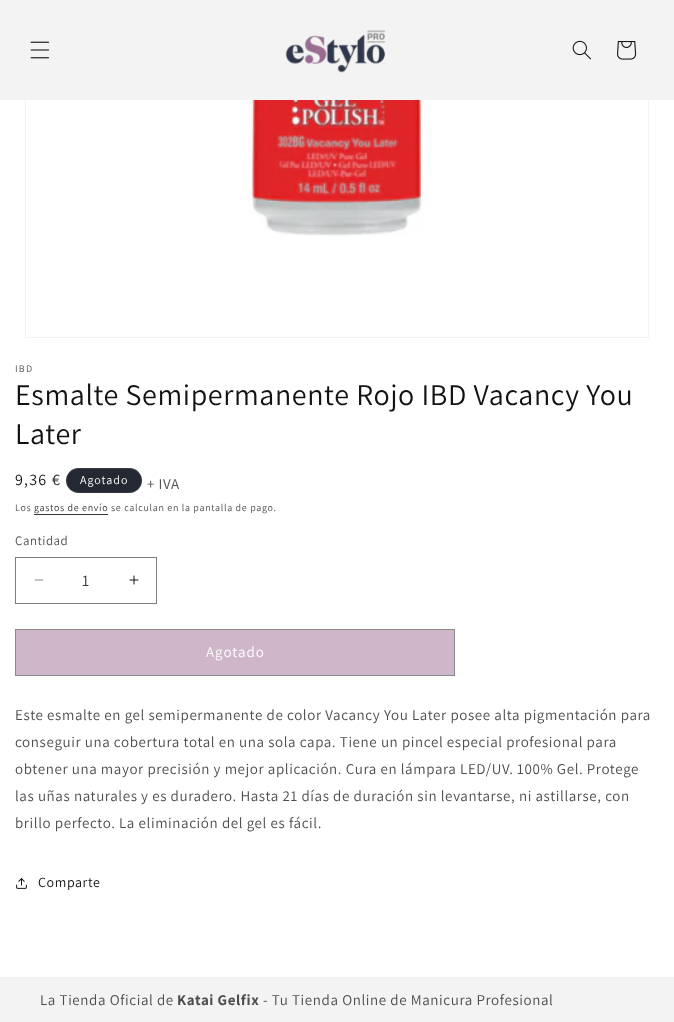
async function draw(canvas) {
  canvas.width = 674
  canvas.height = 1022
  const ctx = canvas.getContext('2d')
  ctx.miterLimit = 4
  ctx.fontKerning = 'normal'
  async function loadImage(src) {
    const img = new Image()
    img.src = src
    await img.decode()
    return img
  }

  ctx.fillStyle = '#fff'
  ctx.fillRect(0, 0, 674, 1022)
  ctx.strokeStyle = '#f3f3f3'
  ctx.strokeRect(25.5, -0.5, 623, 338)
  ctx.fillStyle = '#f3f3f3'
  ctx.fillRect(0, 0, 674, 100)
  ctx.drawImage(await loadImage('image0.png'), 30, 41, 20, 18)
  ctx.drawImage(await loadImage('image1.png'), 285, 30, 101, 43)
  ctx.drawImage(await loadImage('image2.png'), 572, 40, 19, 20)
  ctx.drawImage(await loadImage('image3.png'), 617, 41, 20, 19)
  ctx.drawImage(await loadImage('image4.png'), 248, 100, 182, 137)
  ctx.letterSpacing = '1.25px'
  ctx.font = '10px Assistant'
  ctx.fillStyle = '#4d4d4d'
  ctx.fillText('IBD', 15, 372)
  ctx.letterSpacing = '0.6px'
  ctx.font = '30px Assistant'
  ctx.fillStyle = '#121212'
  ctx.fillText('Esmalte Semipermanente Rojo IBD Vacancy You', 15, 405)
  ctx.fillText('Later', 15, 444)
  ctx.letterSpacing = '1.25px'
  ctx.font = '16px Assistant'
  ctx.fillText('9,36 €', 15, 485)
  ctx.fillStyle = '#242833'
  ctx.beginPath()
  ctx.roundRect(66, 468, 76, 25, 12.5)
  ctx.fill()
  ctx.beginPath()
  ctx.roundRect(66.5, 468.5, 75, 24, 12)
  ctx.strokeStyle = '#ffffff1a'
  ctx.stroke()
  ctx.letterSpacing = '1px'
  ctx.font = '12px Assistant'
  ctx.fillStyle = '#fff'
  ctx.fillText('Agotado', 80, 484)
  ctx.letterSpacing = '0.6px'
  ctx.font = '15px Assistant'
  ctx.fillStyle = '#4d4d4d'
  ctx.fillText('+ IVA', 147, 489)
  ctx.letterSpacing = '0.7px'
  ctx.font = '10px Assistant'
  ctx.fillText('Los', 15, 511)
  ctx.fillStyle = '#363636'
  ctx.fillText('gastos de envío', 34, 511)
  ctx.fillRect(34, 514, 74, 1)
  ctx.fillStyle = '#4d4d4d'
  ctx.fillText('se calculan en la pantalla de pago.', 111, 511)
  ctx.letterSpacing = '0.5px'
  ctx.font = '13px Assistant'
  ctx.fillText('Cantidad', 15, 545)
  ctx.drawImage(await loadImage('image5.png'), 34, 579, 10, 2)
  ctx.drawImage(await loadImage('image6.png'), 129, 575, 10, 10)
  ctx.strokeStyle = '#7d7d7d'
  ctx.strokeRect(15.5, 557.5, 141, 46)
  ctx.letterSpacing = '0px'
  ctx.font = '16px Assistant'
  ctx.fillStyle = '#363636'
  ctx.fillText('1', 82, 586)
  ctx.fillStyle = '#cfb6c9'
  ctx.fillRect(16, 630, 438, 45)
  ctx.strokeStyle = '#898989'
  ctx.strokeRect(15.5, 629.5, 439, 46)
  ctx.letterSpacing = '1px'
  ctx.font = '15px Assistant'
  ctx.fillStyle = '#fff'
  ctx.fillText('Agotado', 206, 657)
  ctx.letterSpacing = '0.6px'
  ctx.fillStyle = '#4d4d4d'
  ctx.fillText('Este esmalte en gel semipermanente de color Vacancy You Later posee alta pigmentación para', 15, 720)
  ctx.fillText('conseguir una cobertura total en una sola capa. Tiene un pincel especial profesional para', 15, 747)
  ctx.fillText('obtener una mayor precisión y mejor aplicación. Cura en lámpara LED/UV. 100% Gel. Protege', 15, 774)
  ctx.fillText('las uñas naturales y es duradero. Hasta 21 días de duración sin levantarse, ni astillarse, con', 15, 801)
  ctx.fillText('brillo perfecto. La eliminación del gel es fácil.', 15, 828)
  ctx.drawImage(await loadImage('image7.png'), 16, 878, 11, 11)
  ctx.font = '14px Assistant'
  ctx.fillStyle = '#121212'
  ctx.fillText('Comparte', 38, 887)
  ctx.fillStyle = '#f3f3f3'
  ctx.fillRect(0, 977, 674, 45)
  ctx.font = '15px Assistant'
  ctx.fillStyle = '#4d4d4d'
  ctx.fillText('La Tienda Oficial de', 40, 1005)
  ctx.font = 'bold 15px Assistant'
  ctx.fillText('Katai Gelfix', 177, 1005)
  ctx.font = '15px Assistant'
  ctx.fillText('- Tu Tienda Online de Manicura Profesional', 263, 1005)
}

draw(document.querySelector('canvas'))
